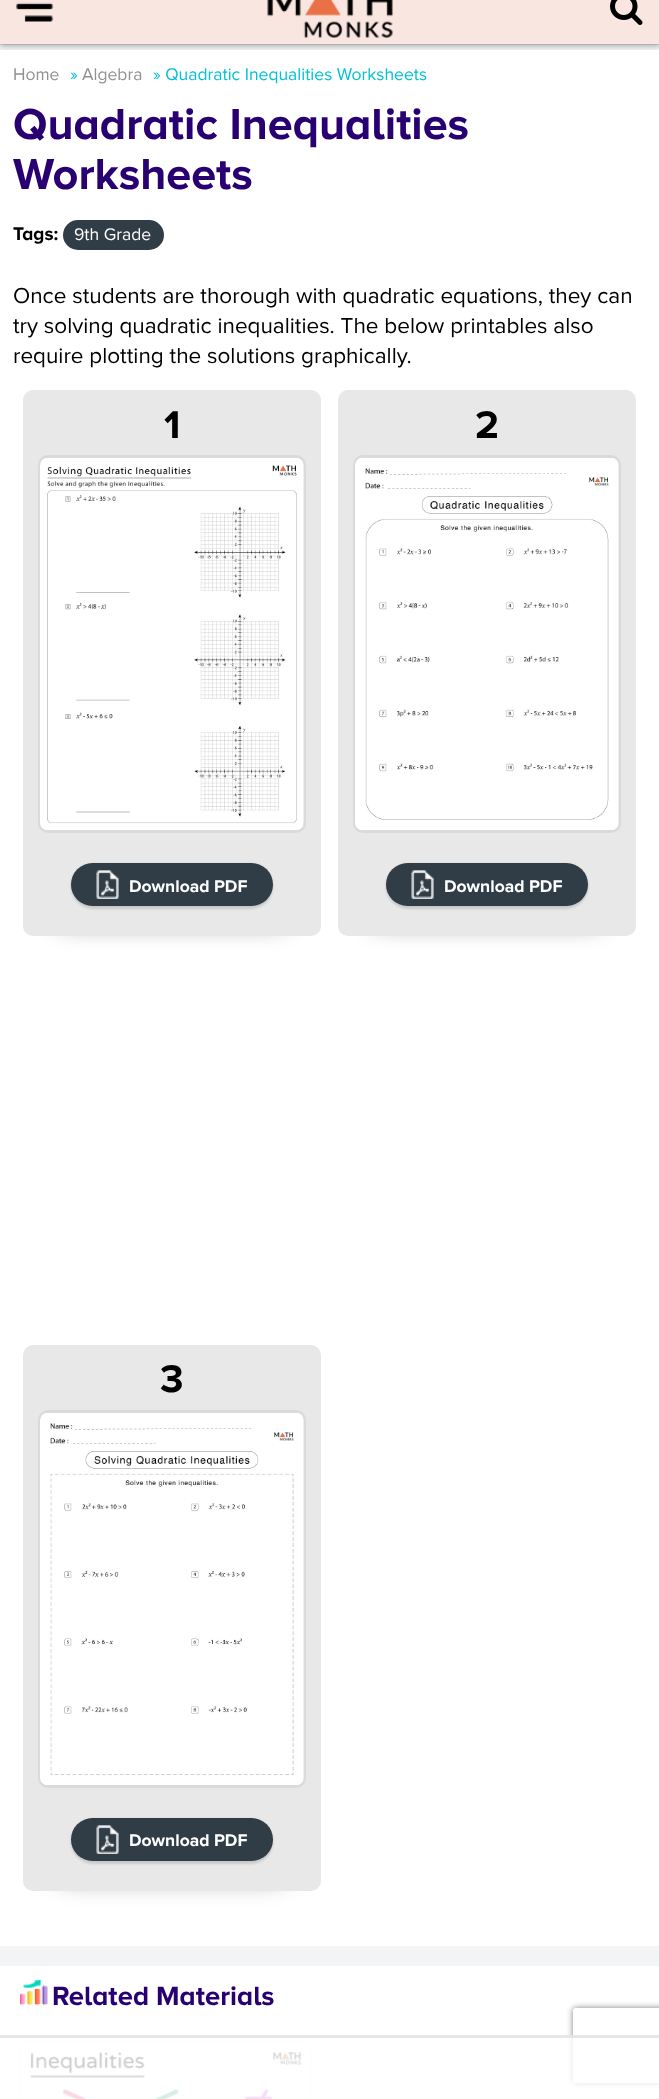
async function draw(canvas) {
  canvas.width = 659
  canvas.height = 2099
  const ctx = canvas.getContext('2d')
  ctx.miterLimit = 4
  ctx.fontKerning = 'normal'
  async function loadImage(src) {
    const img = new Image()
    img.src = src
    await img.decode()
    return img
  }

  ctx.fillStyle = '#f2f4f5'
  ctx.fillRect(0, 0, 659, 2099)
  ctx.fillStyle = '#dedddd'
  ctx.fillRect(0, 44, 659, 1)
  ctx.fillStyle = '#0000004d'
  ctx.filter = 'blur(3px)'
  ctx.beginPath()
  ctx.rect(0, -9, 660, 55)
  ctx.fill()
  ctx.filter = 'none'
  ctx.fillStyle = '#f9e6e0'
  ctx.fillRect(0, 0, 659, 44)
  ctx.drawImage(await loadImage('image0.png'), 15, 2, 39, 20)
  ctx.drawImage(await loadImage('image1.png'), 267, 0, 126, 38)
  ctx.drawImage(await loadImage('image2.png'), 610, 0, 33, 25)
  ctx.fillStyle = '#fff'
  ctx.fillRect(0, 50, 659, 1896)
  ctx.font = '17.5px Proxima Nova'
  ctx.fillStyle = '#949090'
  ctx.fillText('Home', 13, 80)
  ctx.fillStyle = '#00c1d5'
  ctx.fillText('»', 70, 80)
  ctx.fillStyle = '#949090'
  ctx.fillText('Algebra', 82, 80)
  ctx.fillStyle = '#00c1d5'
  ctx.fillText('» Quadratic Inequalities Worksheets', 153, 80)
  ctx.font = 'bold 45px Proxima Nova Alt'
  ctx.fillStyle = '#280071'
  ctx.fillText('Quadratic Inequalities', 13, 139)
  ctx.fillText('Worksheets', 13, 189)
  ctx.font = 'bold 19px Proxima Nova Alt'
  ctx.fillStyle = '#000'
  ctx.fillText('Tags:', 13, 240)
  ctx.fillStyle = '#303c46'
  ctx.beginPath()
  ctx.roundRect(63, 220, 101, 30, 15)
  ctx.fill()
  ctx.font = '17.5px Proxima Nova'
  ctx.fillStyle = '#fff'
  ctx.fillText('9th Grade', 74, 240)
  ctx.font = '22.5px Proxima Nova'
  ctx.fillStyle = '#000'
  ctx.fillText('Once students are thorough with quadratic equations, they can', 13, 303)
  ctx.fillText('try solving quadratic inequalities. The below printables also', 13, 333)
  ctx.fillText('require plotting the solutions graphically.', 13, 363)
  ctx.fillStyle = '#00000073'
  ctx.filter = 'blur(12.5px)'
  ctx.beginPath()
  ctx.rect(60, 453, 224, 471)
  ctx.fill()
  ctx.filter = 'none'
  ctx.fillStyle = '#e8e8e8'
  ctx.beginPath()
  ctx.roundRect(23, 390, 298, 546, 10)
  ctx.fill()
  ctx.font = 'bold 40px Proxima Nova Alt'
  ctx.fillStyle = '#000'
  ctx.fillText('1', 164, 438)
  ctx.fillStyle = '#dadada'
  ctx.beginPath()
  ctx.roundRect(38, 455, 268, 378, 10)
  ctx.fill()
  ctx.drawImage(await loadImage('image3.png'), 40, 458, 264, 372)
  ctx.fillStyle = '#0000001f'
  ctx.filter = 'blur(1px)'
  ctx.beginPath()
  ctx.roundRect(71, 865, 202, 44, 22)
  ctx.fill()
  ctx.filter = 'none'
  ctx.fillStyle = '#0000000f'
  ctx.filter = 'blur(1px)'
  ctx.beginPath()
  ctx.roundRect(71, 863, 202, 43, 21.5)
  ctx.fill()
  ctx.filter = 'none'
  ctx.fillStyle = '#303c46'
  ctx.beginPath()
  ctx.roundRect(71, 863, 202, 43, 21.5)
  ctx.fill()
  ctx.drawImage(await loadImage('image4.png'), 96, 870, 23, 29)
  ctx.font = 'bold 17.5px Proxima Nova'
  ctx.fillStyle = '#fff'
  ctx.fillText('Download PDF', 129, 892)
  ctx.fillStyle = '#00000073'
  ctx.filter = 'blur(12.5px)'
  ctx.beginPath()
  ctx.rect(375, 453, 224, 471)
  ctx.fill()
  ctx.filter = 'none'
  ctx.fillStyle = '#e8e8e8'
  ctx.beginPath()
  ctx.roundRect(338, 390, 298, 546, 10)
  ctx.fill()
  ctx.font = 'bold 40px Proxima Nova Alt'
  ctx.fillStyle = '#000'
  ctx.fillText('2', 475, 438)
  ctx.fillStyle = '#dadada'
  ctx.beginPath()
  ctx.roundRect(353, 455, 268, 378, 10)
  ctx.fill()
  ctx.drawImage(await loadImage('image5.png'), 355, 458, 264, 372)
  ctx.fillStyle = '#0000001f'
  ctx.filter = 'blur(1px)'
  ctx.beginPath()
  ctx.roundRect(386, 865, 202, 44, 22)
  ctx.fill()
  ctx.filter = 'none'
  ctx.fillStyle = '#0000000f'
  ctx.filter = 'blur(1px)'
  ctx.beginPath()
  ctx.roundRect(386, 863, 202, 43, 21.5)
  ctx.fill()
  ctx.filter = 'none'
  ctx.fillStyle = '#303c46'
  ctx.beginPath()
  ctx.roundRect(386, 863, 202, 43, 21.5)
  ctx.fill()
  ctx.drawImage(await loadImage('image4.png'), 411, 870, 23, 29)
  ctx.font = 'bold 17.5px Proxima Nova'
  ctx.fillStyle = '#fff'
  ctx.fillText('Download PDF', 444, 892)
  ctx.fillStyle = '#00000073'
  ctx.filter = 'blur(12.5px)'
  ctx.beginPath()
  ctx.rect(60, 1408, 224, 471)
  ctx.fill()
  ctx.filter = 'none'
  ctx.fillStyle = '#e8e8e8'
  ctx.beginPath()
  ctx.roundRect(23, 1345, 298, 546, 10)
  ctx.fill()
  ctx.font = 'bold 40px Proxima Nova Alt'
  ctx.fillStyle = '#000'
  ctx.fillText('3', 160, 1392)
  ctx.fillStyle = '#dadada'
  ctx.beginPath()
  ctx.roundRect(38, 1410, 268, 378, 10)
  ctx.fill()
  ctx.drawImage(await loadImage('image6.png'), 40, 1413, 264, 372)
  ctx.fillStyle = '#0000001f'
  ctx.filter = 'blur(1px)'
  ctx.beginPath()
  ctx.roundRect(71, 1820, 202, 44, 22)
  ctx.fill()
  ctx.filter = 'none'
  ctx.fillStyle = '#0000000f'
  ctx.filter = 'blur(1px)'
  ctx.beginPath()
  ctx.roundRect(71, 1818, 202, 43, 21.5)
  ctx.fill()
  ctx.filter = 'none'
  ctx.fillStyle = '#303c46'
  ctx.beginPath()
  ctx.roundRect(71, 1818, 202, 43, 21.5)
  ctx.fill()
  ctx.drawImage(await loadImage('image7.png'), 96, 1825, 23, 29)
  ctx.font = 'bold 17.5px Proxima Nova'
  ctx.fillStyle = '#fff'
  ctx.fillText('Download PDF', 129, 1846)
  ctx.fillRect(0, 1966, 659, 133)
  ctx.drawImage(await loadImage('image8.png'), 20, 1979, 28, 27)
  ctx.font = 'bold 27.5px Proxima Nova Alt'
  ctx.fillStyle = '#280071'
  ctx.fillText('Related Materials', 52, 2005)
  ctx.beginPath()
  ctx.roundRect(20.5, 2041.5, 290, 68, 9.5)
  ctx.strokeStyle = '#ededed'
  ctx.stroke()
  ctx.drawImage(await loadImage('image9.png'), 29, 2043, 277, 56)
  ctx.save()
  ctx.beginPath()
  ctx.moveTo(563, 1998)
  ctx.lineTo(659, 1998)
  ctx.lineTo(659, 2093)
  ctx.lineTo(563, 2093)
  ctx.closePath()
  ctx.moveTo(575.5, 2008)
  ctx.lineTo(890.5, 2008)
  ctx.bezierCurveTo(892, 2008, 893, 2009, 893, 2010.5)
  ctx.lineTo(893, 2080.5)
  ctx.bezierCurveTo(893, 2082, 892, 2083, 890.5, 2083)
  ctx.lineTo(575.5, 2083)
  ctx.bezierCurveTo(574, 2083, 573, 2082, 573, 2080.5)
  ctx.lineTo(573, 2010.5)
  ctx.bezierCurveTo(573, 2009, 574, 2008, 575.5, 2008)
  ctx.closePath()
  ctx.clip('evenodd')
  ctx.fillStyle = '#808080'
  ctx.filter = 'blur(3px)'
  ctx.beginPath()
  ctx.roundRect(573, 2008, 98, 75, 2.5)
  ctx.fill()
  ctx.filter = 'none'
  ctx.restore()
  ctx.fillStyle = '#ffffffcc'
  ctx.fillRect(20, 2035, 639, 64)
  ctx.fillStyle = '#e1e1e1cc'
  ctx.fillRect(0, 2035, 659, 3)
}

draw(document.querySelector('canvas'))
